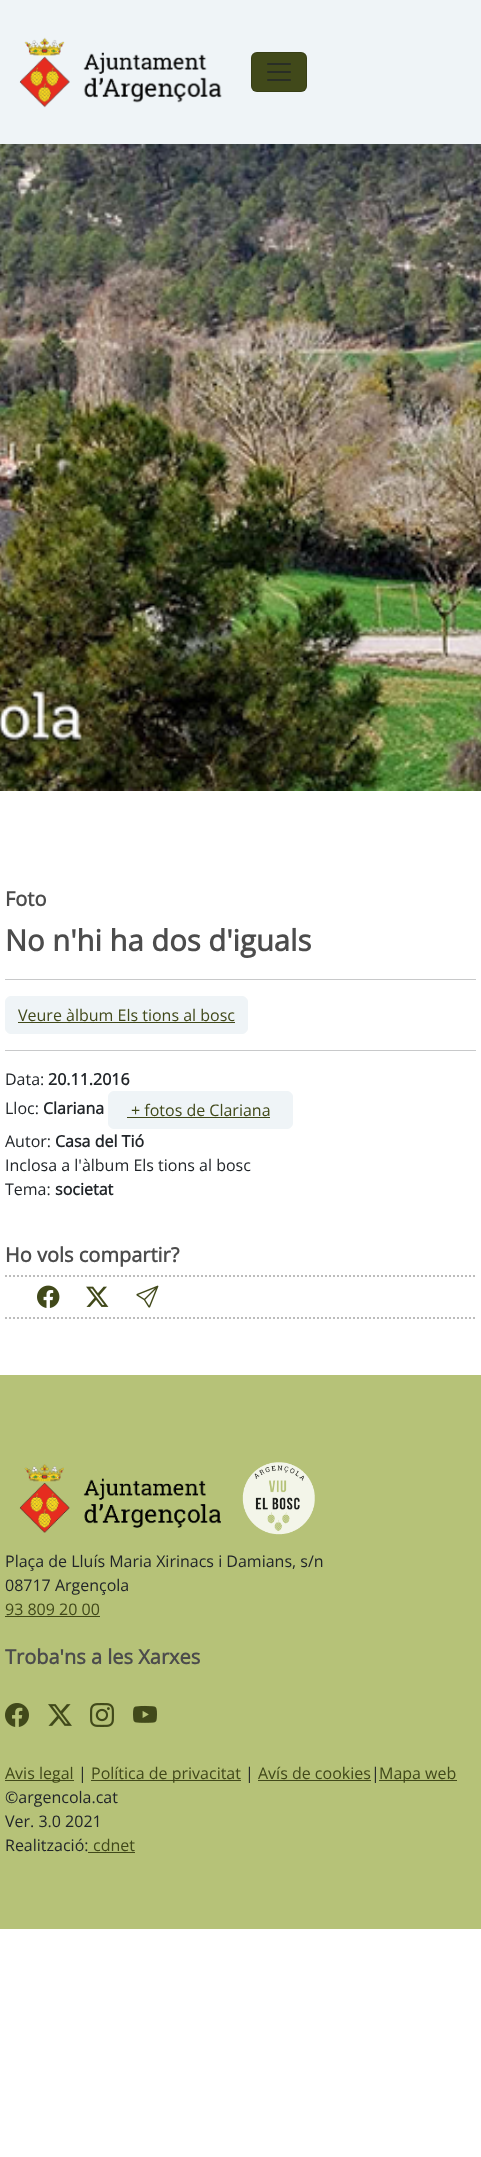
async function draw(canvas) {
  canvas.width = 481
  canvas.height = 2157
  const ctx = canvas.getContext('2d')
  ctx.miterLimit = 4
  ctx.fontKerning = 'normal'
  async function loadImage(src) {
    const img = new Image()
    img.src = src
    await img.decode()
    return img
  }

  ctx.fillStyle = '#fff'
  ctx.fillRect(0, 0, 481, 2157)
  ctx.fillStyle = '#eff4f7'
  ctx.fillRect(0, 0, 481, 144)
  ctx.drawImage(await loadImage('image0.png'), 19, 37, 203, 71)
  ctx.fillStyle = '#41491a'
  ctx.beginPath()
  ctx.roundRect(251, 52, 56, 40, 6)
  ctx.fill()
  ctx.beginPath()
  ctx.roundRect(251.5, 52.5, 55, 39, 5.5)
  ctx.strokeStyle = '#00000026'
  ctx.stroke()
  ctx.drawImage(await loadImage('image1.png'), 267, 63, 24, 18)
  ctx.drawImage(await loadImage('image2.png'), 0, 144, 481, 647)
  ctx.font = 'bold 20px Open Sans'
  ctx.fillStyle = '#4c4c4c'
  ctx.fillText('Foto', 5, 906)
  ctx.font = 'bold 29.25px Open Sans'
  ctx.fillText('No n\'hi ha dos d\'iguals', 5, 951)
  ctx.fillStyle = '#c8c9ca'
  ctx.fillRect(5, 979, 471, 1)
  ctx.fillStyle = '#eff4f7'
  ctx.beginPath()
  ctx.roundRect(5.5, 996.5, 242, 37, 5.5)
  ctx.fill()
  ctx.strokeStyle = '#eff4f7'
  ctx.stroke()
  ctx.font = '16px Open Sans'
  ctx.fillStyle = '#41491a'
  ctx.fillText('Veure àlbum Els tions al bosc', 18, 1021)
  ctx.fillRect(18, 1022, 217, 1)
  ctx.fillStyle = '#c8c9ca'
  ctx.fillRect(5, 1050, 471, 1)
  ctx.fillStyle = '#212529'
  ctx.fillText('Data:', 5, 1085)
  ctx.font = 'bold 16px Open Sans'
  ctx.fillText('20.11.2016', 48, 1085)
  ctx.font = '16px Open Sans'
  ctx.fillText('Lloc:', 5, 1114)
  ctx.font = 'bold 16px Open Sans'
  ctx.fillText('Clariana', 43, 1114)
  ctx.fillStyle = '#eff4f7'
  ctx.beginPath()
  ctx.roundRect(108.5, 1091.5, 184, 37, 5.5)
  ctx.fill()
  ctx.stroke()
  ctx.font = '16px Open Sans'
  ctx.fillStyle = '#41491a'
  ctx.fillText('+ fotos de Clariana', 131, 1116)
  ctx.fillRect(127, 1117, 143, 1)
  ctx.fillStyle = '#212529'
  ctx.fillText('Autor:', 5, 1147)
  ctx.font = 'bold 16px Open Sans'
  ctx.fillText('Casa del Tió', 55, 1147)
  ctx.font = '16px Open Sans'
  ctx.fillText('Inclosa a l\'àlbum Els tions al bosc', 5, 1171)
  ctx.fillText('Tema:', 5, 1195)
  ctx.font = 'bold 16px Open Sans'
  ctx.fillText('societat', 55, 1195)
  ctx.font = 'bold 20px Open Sans'
  ctx.fillStyle = '#4c4c4c'
  ctx.fillText('Ho vols compartir?', 5, 1262)
  ctx.beginPath()
  ctx.moveTo(5, 1276)
  ctx.lineTo(476, 1276)
  ctx.strokeStyle = '#bcbcbc'
  ctx.lineWidth = 2
  ctx.setLineDash([2, 2])
  ctx.stroke()
  ctx.beginPath()
  ctx.moveTo(5, 1318)
  ctx.lineTo(476, 1318)
  ctx.stroke()
  ctx.drawImage(await loadImage('image3.png'), 37, 1285, 23, 23)
  ctx.drawImage(await loadImage('image4.png'), 86, 1286, 23, 21)
  ctx.drawImage(await loadImage('image5.png'), 136, 1285, 23, 23)
  ctx.fillStyle = '#b6c278'
  ctx.fillRect(0, 1375, 481, 554)
  ctx.drawImage(await loadImage('image6.png'), 19, 1464, 202, 69)
  ctx.drawImage(await loadImage('image7.png'), 242, 1462, 73, 73)
  ctx.font = '16px Open Sans'
  ctx.fillStyle = '#212529'
  ctx.fillText('Plaça de Lluís Maria Xirinacs i Damians, s/n', 5, 1567)
  ctx.fillText('08717 Argençola', 5, 1591)
  ctx.fillStyle = '#41491a'
  ctx.fillText('93 809 20 00', 5, 1615)
  ctx.fillRect(5, 1616, 95, 1)
  ctx.font = 'bold 20px Open Sans'
  ctx.fillStyle = '#4c4c4c'
  ctx.fillText('Troba\'ns a les Xarxes', 5, 1664)
  ctx.drawImage(await loadImage('image8.png'), 5, 1703, 24, 24)
  ctx.drawImage(await loadImage('image9.png'), 48, 1704, 24, 22)
  ctx.drawImage(await loadImage('image10.png'), 90, 1703, 24, 24)
  ctx.drawImage(await loadImage('image11.png'), 133, 1705, 24, 18)
  ctx.fillStyle = '#41491a'
  ctx.fillRect(5, 1780, 69, 1)
  ctx.font = '16px Open Sans'
  ctx.fillText('Avis legal', 5, 1779)
  ctx.fillStyle = '#212529'
  ctx.fillText('|', 78, 1779)
  ctx.fillStyle = '#41491a'
  ctx.fillRect(91, 1780, 150, 1)
  ctx.fillText('Política de privacitat', 91, 1779)
  ctx.fillStyle = '#212529'
  ctx.fillText('|', 245, 1779)
  ctx.fillStyle = '#41491a'
  ctx.fillText('Avís de cookies', 258, 1779)
  ctx.fillRect(258, 1780, 113, 1)
  ctx.fillStyle = '#212529'
  ctx.fillText('|', 371, 1779)
  ctx.fillStyle = '#41491a'
  ctx.fillRect(379, 1780, 78, 1)
  ctx.fillText('Mapa web', 379, 1779)
  ctx.fillStyle = '#212529'
  ctx.fillText('©argencola.cat', 5, 1803)
  ctx.fillText('Ver. 3.0 2021', 5, 1827)
  ctx.fillText('Realització:', 5, 1851)
  ctx.fillStyle = '#41491a'
  ctx.fillText('cdnet', 93, 1851)
  ctx.fillRect(88, 1852, 47, 1)
}

draw(document.querySelector('canvas'))
